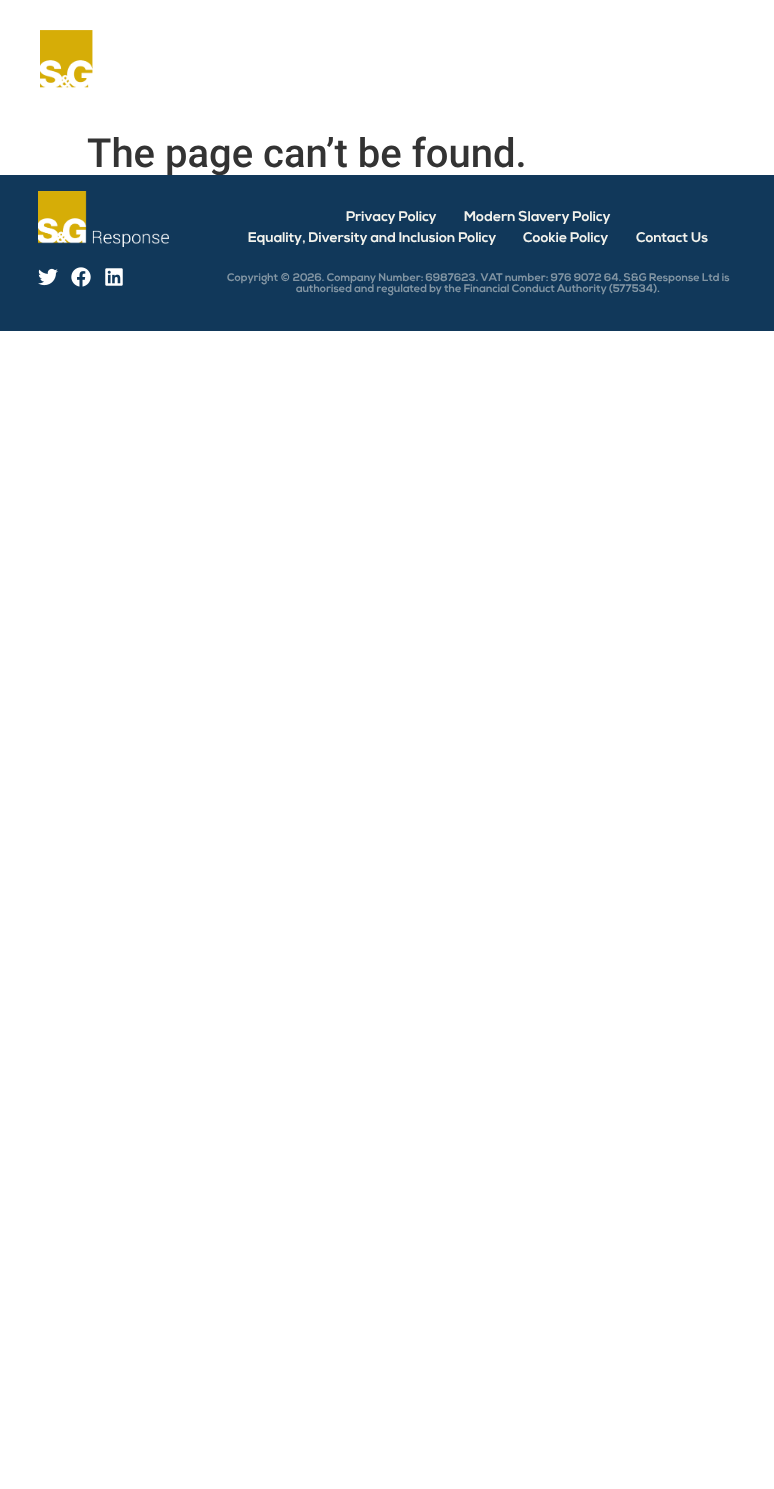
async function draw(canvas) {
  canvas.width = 774
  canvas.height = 1489
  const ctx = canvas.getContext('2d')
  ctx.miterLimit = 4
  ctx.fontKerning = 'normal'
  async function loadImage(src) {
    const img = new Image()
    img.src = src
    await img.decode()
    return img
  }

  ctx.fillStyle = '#fff'
  ctx.fillRect(0, 0, 774, 1489)
  ctx.drawImage(await loadImage('image0.png'), 40, 30, 53, 58)
  ctx.font = '500 40px Roboto'
  ctx.fillStyle = '#333'
  ctx.fillText('The page can’t be found.', 87, 167)
  ctx.fillStyle = '#11385a'
  ctx.fillRect(0, 175, 774, 156)
  ctx.drawImage(await loadImage('image1.png'), 38, 191, 131, 56)
  ctx.drawImage(await loadImage('image2.png'), 38, 268, 20, 18)
  ctx.drawImage(await loadImage('image3.png'), 71, 267, 20, 20)
  ctx.drawImage(await loadImage('image4.png'), 105, 268, 18, 18)
  ctx.font = 'bold 14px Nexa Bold'
  ctx.fillStyle = '#f2f2ec'
  ctx.fillText('Privacy Policy', 346, 221)
  ctx.fillText('Modern Slavery Policy', 464, 221)
  ctx.fillText('Equality, Diversity and Inclusion Policy', 248, 242)
  ctx.fillText('Cookie Policy', 523, 242)
  ctx.fillText('Contact Us', 636, 242)
  ctx.font = 'bold 11px Nexa Bold'
  ctx.fillStyle = '#8295a3'
  ctx.fillText('Copyright © 2026. Company Number: 6987623. VAT number: 976 9072 64. S&G Response Ltd is', 227, 281)
  ctx.fillText('authorised and regulated by the Financial Conduct Authority (577534).', 296, 292)
}

draw(document.querySelector('canvas'))
